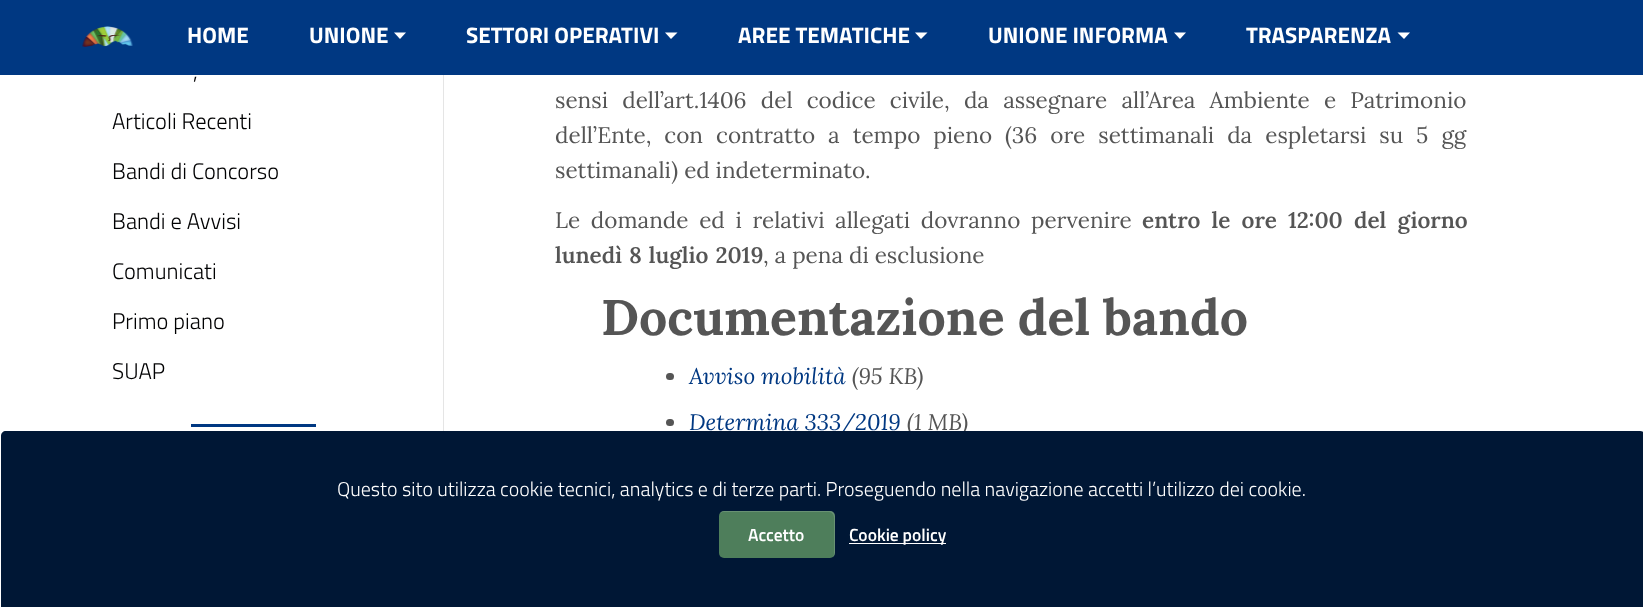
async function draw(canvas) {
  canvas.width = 1643
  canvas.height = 607
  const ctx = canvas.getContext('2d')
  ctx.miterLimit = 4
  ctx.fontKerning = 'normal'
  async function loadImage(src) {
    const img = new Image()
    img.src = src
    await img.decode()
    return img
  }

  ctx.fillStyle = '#fff'
  ctx.fillRect(0, 0, 1643, 607)
  ctx.fillStyle = '#003882'
  ctx.fillRect(0, 0, 1643, 75)
  ctx.drawImage(await loadImage('image0.png'), 82, 26, 51, 21)
  ctx.font = 'bold 22.5px Titillium Web'
  ctx.fillStyle = '#fff'
  ctx.fillText('HOME', 187, 43)
  ctx.fillText('UNIONE', 309, 43)
  ctx.beginPath()
  ctx.moveTo(394, 32.5)
  ctx.lineTo(406, 32.5)
  ctx.lineTo(400, 39)
  ctx.closePath()
  ctx.fill()
  ctx.fillText('SETTORI OPERATIVI', 466, 43)
  ctx.beginPath()
  ctx.moveTo(665, 32.5)
  ctx.lineTo(677.5, 32.5)
  ctx.lineTo(671, 39)
  ctx.closePath()
  ctx.fill()
  ctx.fillText('AREE TEMATICHE', 738, 43)
  ctx.beginPath()
  ctx.moveTo(915, 32.5)
  ctx.lineTo(927.5, 32.5)
  ctx.lineTo(921, 39)
  ctx.closePath()
  ctx.fill()
  ctx.fillText('UNIONE INFORMA', 988, 43)
  ctx.beginPath()
  ctx.moveTo(1174, 32.5)
  ctx.lineTo(1186, 32.5)
  ctx.lineTo(1180, 39)
  ctx.closePath()
  ctx.fill()
  ctx.fillText('TRASPARENZA', 1246, 43)
  ctx.beginPath()
  ctx.moveTo(1397.5, 32.5)
  ctx.lineTo(1410, 32.5)
  ctx.lineTo(1404, 39)
  ctx.closePath()
  ctx.fill()
  ctx.fillStyle = '#e5e5e5'
  ctx.fillRect(443, 75, 1, 356)
  ctx.font = '300 22.5px Titillium Web'
  ctx.fillStyle = '#000102'
  ctx.fillText(',', 193, 79)
  ctx.fillText('Articoli Recenti', 112, 129)
  ctx.fillText('Bandi di Concorso', 112, 179)
  ctx.fillText('Bandi e Avvisi', 112, 229)
  ctx.fillText('Comunicati', 112, 279)
  ctx.fillText('Primo piano', 112, 329)
  ctx.fillText('SUAP', 112, 379)
  ctx.fillStyle = '#003882'
  ctx.fillRect(191, 424, 125, 3)
  ctx.wordSpacing = '8.25px'
  ctx.font = '22.5px Lora'
  ctx.fillStyle = '#555'
  ctx.fillText('sensi dell’art.1406 del codice civile, da assegnare all’Area Ambiente e Patrimonio', 555, 108)
  ctx.wordSpacing = '7.1px'
  ctx.fillText('dell’Ente, con contratto a tempo pieno (36 ore settimanali da espletarsi su 5 gg', 555, 143)
  ctx.wordSpacing = '0px'
  ctx.fillText('settimanali) ed indeterminato.', 555, 178)
  ctx.wordSpacing = '4.75px'
  ctx.fillText('Le domande ed i relativi allegati dovranno pervenire', 555, 228)
  ctx.wordSpacing = '5.25px'
  ctx.font = '600 22.5px Lora'
  ctx.fillText('entro le ore 12:00 del giorno', 1142, 228)
  ctx.wordSpacing = '1px'
  ctx.fillText('lunedì 8 luglio 2019', 555, 263)
  ctx.wordSpacing = '0px'
  ctx.font = '22.5px Lora'
  ctx.fillText(', a pena di esclusione', 763, 263)
  ctx.font = 'bold 50px Lora'
  ctx.fillText('Documentazione del bando', 601, 335)
  ctx.beginPath()
  ctx.roundRect(666, 373, 8, 7, 3.5)
  ctx.fill()
  ctx.font = 'italic 22.5px Lora'
  ctx.fillStyle = '#003882'
  ctx.fillText('Avviso mobilità', 689, 384)
  ctx.fillStyle = '#555'
  ctx.fillText('(95 KB)', 852, 384)
  ctx.beginPath()
  ctx.roundRect(666, 419, 8, 7, 3.5)
  ctx.fill()
  ctx.fillStyle = '#003882'
  ctx.fillText('Determina 333/2019', 689, 430)
  ctx.fillStyle = '#555'
  ctx.fillText('(1 MB)', 907, 430)
  ctx.fillStyle = '#001735'
  ctx.beginPath()
  ctx.moveTo(6, 431)
  ctx.lineTo(1640, 431)
  ctx.bezierCurveTo(1643, 431, 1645, 433, 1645, 436)
  ctx.lineTo(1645, 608)
  ctx.lineTo(1, 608)
  ctx.lineTo(1, 436)
  ctx.bezierCurveTo(1, 433, 3, 431, 6, 431)
  ctx.closePath()
  ctx.fill()
  ctx.font = '300 20px Titillium Web'
  ctx.fillStyle = '#fff'
  ctx.fillText('Questo sito utilizza cookie tecnici, analytics e di terze parti. Proseguendo nella navigazione accetti l’utilizzo dei cookie.', 337, 496)
  ctx.fillStyle = '#4e7e5b'
  ctx.beginPath()
  ctx.roundRect(719, 511, 116, 47, 5)
  ctx.fill()
  ctx.fillStyle = '#ffffff26'
  ctx.beginPath()
  ctx.moveTo(723, 512)
  ctx.lineTo(829, 512)
  ctx.bezierCurveTo(832, 512, 834, 515, 834, 518)
  ctx.lineTo(834, 554)
  ctx.lineTo(833, 557)
  ctx.bezierCurveTo(834, 556, 835, 554, 835, 553)
  ctx.lineTo(835, 516)
  ctx.bezierCurveTo(835, 513, 833, 511, 830, 511)
  ctx.lineTo(724, 511)
  ctx.bezierCurveTo(722, 511, 720, 512, 720, 514)
  ctx.bezierCurveTo(720, 513, 722, 512, 723, 512)
  ctx.closePath()
  ctx.fill()
  ctx.font = '600 17.5px Titillium Web'
  ctx.fillStyle = '#fff'
  ctx.fillText('Accetto', 748, 541)
  ctx.fillRect(849, 543, 97, 1)
  ctx.fillText('Cookie policy', 849, 541)
}

draw(document.querySelector('canvas'))
